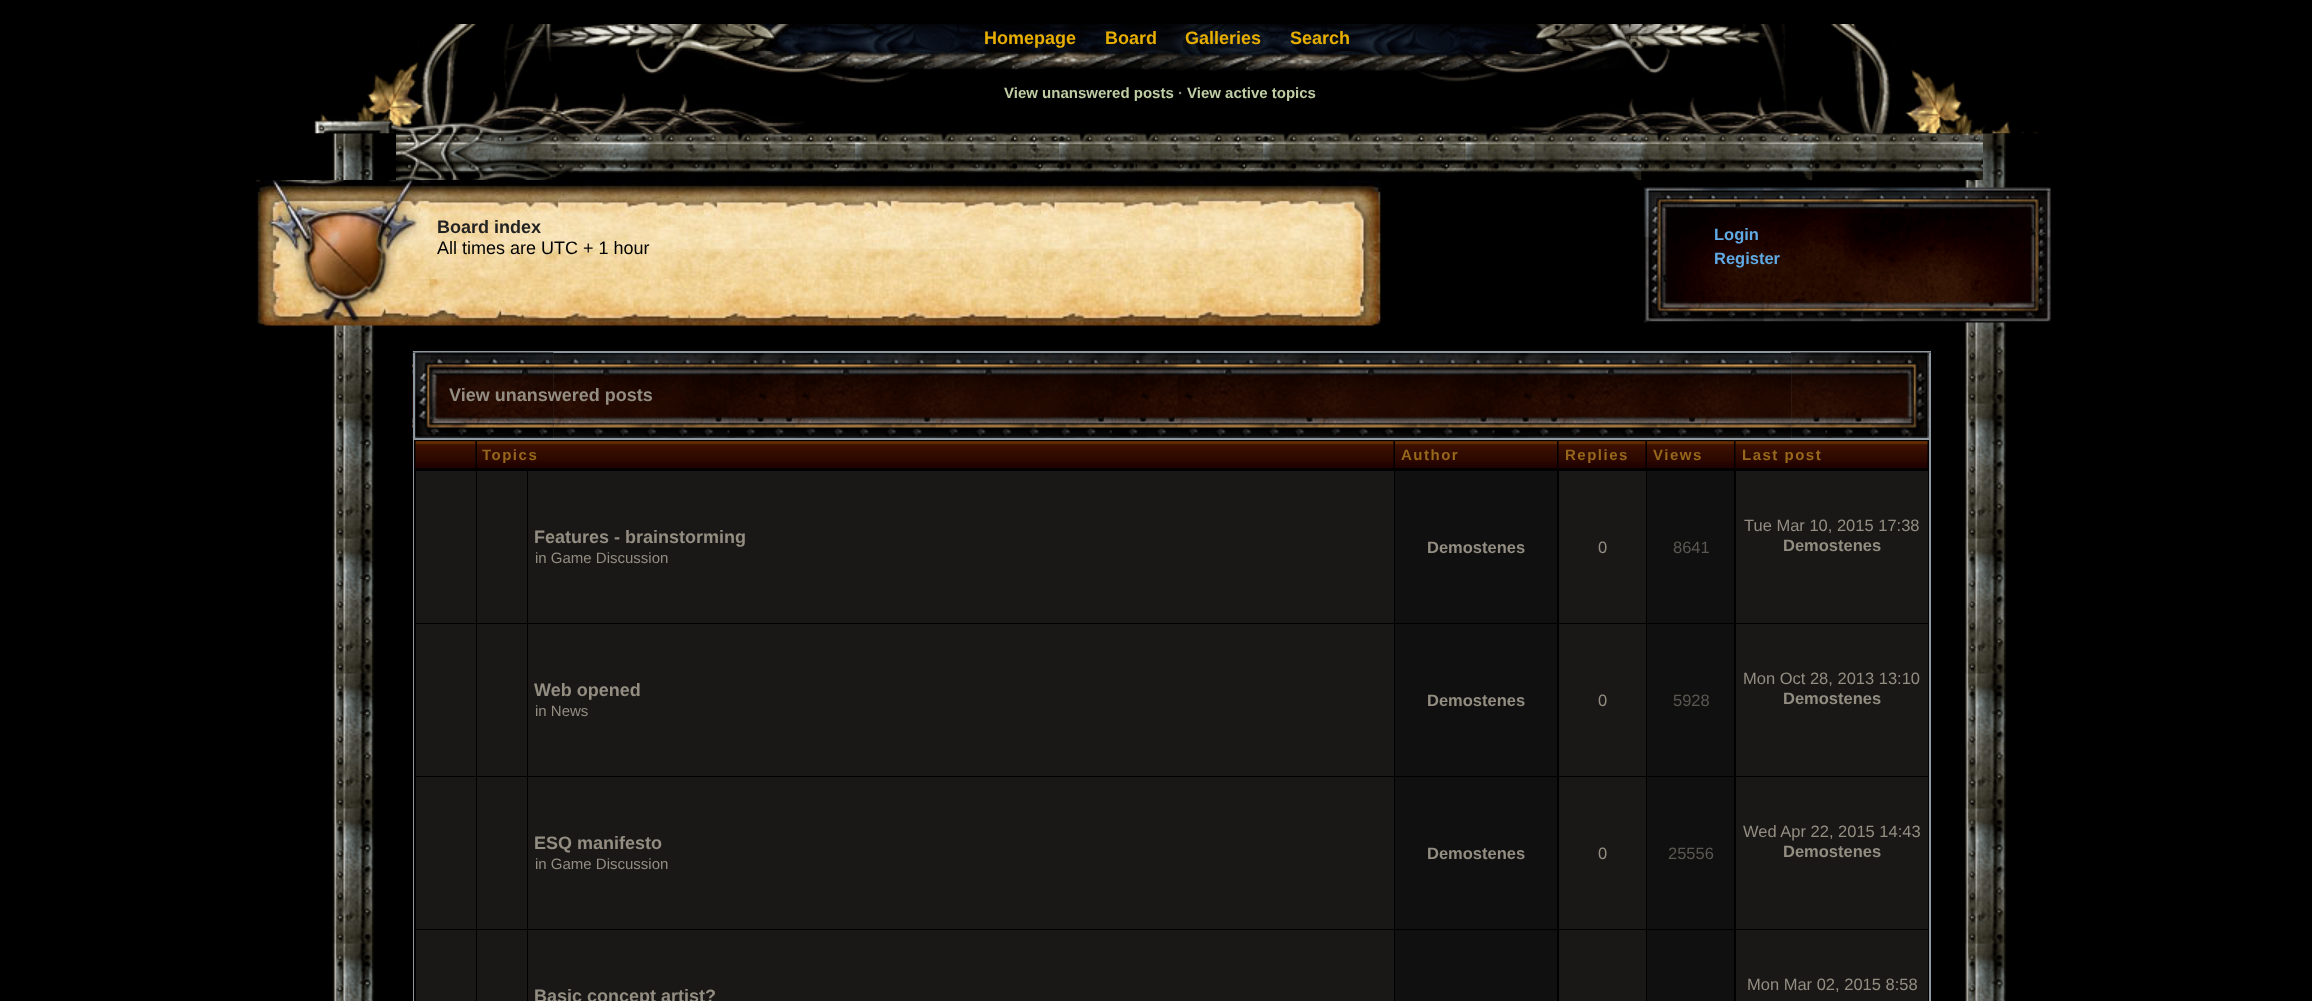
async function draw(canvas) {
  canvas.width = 2312
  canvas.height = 1001
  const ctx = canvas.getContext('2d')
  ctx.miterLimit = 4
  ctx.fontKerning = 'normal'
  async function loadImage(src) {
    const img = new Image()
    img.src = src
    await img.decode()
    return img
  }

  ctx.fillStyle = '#000'
  ctx.fillRect(0, 0, 2312, 1001)
  ctx.drawImage(await loadImage('image0.png'), 418, 24, 1477, 27)
  ctx.drawImage(await loadImage('image1.png'), 418, 24, 382, 27)
  ctx.font = 'bold 18px Liberation Sans'
  ctx.fillStyle = '#e7ae00'
  ctx.fillText('Homepage', 984, 44)
  ctx.fillText('Board', 1105, 44)
  ctx.fillText('Galleries', 1185, 44)
  ctx.fillText('Search', 1290, 44)
  ctx.drawImage(await loadImage('image2.png'), 1534, 24, 361, 27)
  ctx.drawImage(await loadImage('image3.png'), 314, 51, 1724, 83)
  ctx.font = 'bold 15px Liberation Sans'
  ctx.fillStyle = '#bfcea5'
  ctx.fillText('View unanswered posts', 1004, 98)
  ctx.fillStyle = '#938d82'
  ctx.fillText('·', 1178, 98)
  ctx.fillStyle = '#bfcea5'
  ctx.fillText('View active topics', 1187, 98)
  ctx.drawImage(await loadImage('image4.png'), 314, 133, 79, 868)
  ctx.drawImage(await loadImage('image5.png'), 1965, 133, 72, 868)
  ctx.drawImage(await loadImage('image6.png'), 396, 133, 1587, 47)
  ctx.drawImage(await loadImage('image7.png'), 256, 180, 1126, 146)
  ctx.font = 'bold 18px Liberation Sans'
  ctx.fillStyle = '#222'
  ctx.fillText('Board index', 437, 233)
  ctx.font = '18px Liberation Sans'
  ctx.fillStyle = '#000'
  ctx.fillText('All times are UTC + 1 hour', 437, 254)
  ctx.drawImage(await loadImage('image8.png'), 1644, 187, 407, 136)
  ctx.font = 'bold 16.5px Liberation Sans'
  ctx.fillStyle = '#5faae4'
  ctx.fillText('Login', 1714, 240)
  ctx.fillText('Register', 1714, 264)
  ctx.drawImage(await loadImage('image9.png'), 412, 351, 1379, 87)
  ctx.fillStyle = '#8e98a1'
  ctx.fillRect(413, 351, 1518, 2)
  ctx.drawImage(await loadImage('image10.png'), 412, 352, 142, 86)
  ctx.fillRect(413, 353, 2, 85)
  ctx.drawImage(await loadImage('image11.png'), 1791, 352, 140, 86)
  ctx.fillRect(1929, 353, 2, 85)
  ctx.font = 'bold 18px Liberation Sans'
  ctx.fillStyle = '#938d82'
  ctx.fillText('View unanswered posts', 449, 401)
  ctx.strokeStyle = '#8e98a1'
  ctx.lineWidth = 2
  ctx.strokeRect(414, 439, 1516, 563)
  ctx.fillStyle = '#000'
  ctx.fillRect(414, 440, 1, 561)
  ctx.drawImage(await loadImage('image12.png'), 415, 441, 61, 29)
  ctx.fillRect(416, 468, 60, 2)
  ctx.drawImage(await loadImage('image13.png'), 477, 441, 917, 27)
  ctx.letterSpacing = '1.5px'
  ctx.font = 'bold 15px Liberation Sans'
  ctx.fillStyle = '#97671b'
  ctx.fillText('Topics', 482, 460)
  ctx.drawImage(await loadImage('image14.png'), 1395, 441, 162, 27)
  ctx.fillText('Author', 1401, 460)
  ctx.drawImage(await loadImage('image15.png'), 1558, 441, 88, 29)
  ctx.fillStyle = '#000'
  ctx.fillRect(1559, 468, 87, 2)
  ctx.fillStyle = '#97671b'
  ctx.fillText('Replies', 1565, 460)
  ctx.drawImage(await loadImage('image16.png'), 1647, 441, 87, 27)
  ctx.fillText('Views', 1653, 460)
  ctx.drawImage(await loadImage('image17.png'), 1735, 441, 193, 29)
  ctx.fillStyle = '#000'
  ctx.fillRect(1736, 468, 192, 2)
  ctx.fillStyle = '#97671b'
  ctx.fillText('Last post', 1742, 460)
  ctx.fillStyle = '#191816'
  ctx.fillRect(416, 471, 60, 152)
  ctx.fillRect(477, 471, 50, 152)
  ctx.fillRect(528, 471, 866, 152)
  ctx.letterSpacing = '0px'
  ctx.font = 'bold 18px Liberation Sans'
  ctx.fillStyle = '#938d82'
  ctx.fillText('Features - brainstorming', 534, 543)
  ctx.font = '15px Liberation Sans'
  ctx.fillText('in Game Discussion', 535, 563)
  ctx.fillStyle = '#101010'
  ctx.fillRect(1395, 471, 162, 152)
  ctx.font = 'bold 16.5px Liberation Sans'
  ctx.fillStyle = '#938d82'
  ctx.fillText('Demostenes', 1427, 553)
  ctx.fillStyle = '#191816'
  ctx.fillRect(1559, 471, 87, 152)
  ctx.font = '16.5px Liberation Sans'
  ctx.fillStyle = '#938d82'
  ctx.fillText('0', 1598, 553)
  ctx.fillStyle = '#101010'
  ctx.fillRect(1647, 471, 87, 152)
  ctx.fillStyle = '#5b5751'
  ctx.fillText('8641', 1673, 553)
  ctx.fillStyle = '#191816'
  ctx.fillRect(1736, 471, 192, 152)
  ctx.fillStyle = '#938d82'
  ctx.fillText('Tue Mar 10, 2015 17:38', 1744, 531)
  ctx.font = 'bold 16.5px Liberation Sans'
  ctx.fillText('Demostenes', 1783, 551)
  ctx.fillStyle = '#191816'
  ctx.fillRect(416, 624, 60, 152)
  ctx.fillRect(477, 624, 50, 152)
  ctx.fillRect(528, 624, 866, 152)
  ctx.font = 'bold 18px Liberation Sans'
  ctx.fillStyle = '#938d82'
  ctx.fillText('Web opened', 534, 696)
  ctx.font = '15px Liberation Sans'
  ctx.fillText('in News', 535, 716)
  ctx.fillStyle = '#101010'
  ctx.fillRect(1395, 624, 162, 152)
  ctx.font = 'bold 16.5px Liberation Sans'
  ctx.fillStyle = '#938d82'
  ctx.fillText('Demostenes', 1427, 706)
  ctx.fillStyle = '#191816'
  ctx.fillRect(1559, 624, 87, 152)
  ctx.font = '16.5px Liberation Sans'
  ctx.fillStyle = '#938d82'
  ctx.fillText('0', 1598, 706)
  ctx.fillStyle = '#101010'
  ctx.fillRect(1647, 624, 87, 152)
  ctx.fillStyle = '#5b5751'
  ctx.fillText('5928', 1673, 706)
  ctx.fillStyle = '#191816'
  ctx.fillRect(1736, 624, 192, 152)
  ctx.fillStyle = '#938d82'
  ctx.fillText('Mon Oct 28, 2013 13:10', 1743, 684)
  ctx.font = 'bold 16.5px Liberation Sans'
  ctx.fillText('Demostenes', 1783, 704)
  ctx.fillStyle = '#191816'
  ctx.fillRect(416, 777, 60, 152)
  ctx.fillRect(477, 777, 50, 152)
  ctx.fillRect(528, 777, 866, 152)
  ctx.font = 'bold 18px Liberation Sans'
  ctx.fillStyle = '#938d82'
  ctx.fillText('ESQ manifesto', 534, 849)
  ctx.font = '15px Liberation Sans'
  ctx.fillText('in Game Discussion', 535, 869)
  ctx.fillStyle = '#101010'
  ctx.fillRect(1395, 777, 162, 152)
  ctx.font = 'bold 16.5px Liberation Sans'
  ctx.fillStyle = '#938d82'
  ctx.fillText('Demostenes', 1427, 859)
  ctx.fillStyle = '#191816'
  ctx.fillRect(1559, 777, 87, 152)
  ctx.font = '16.5px Liberation Sans'
  ctx.fillStyle = '#938d82'
  ctx.fillText('0', 1598, 859)
  ctx.fillStyle = '#101010'
  ctx.fillRect(1647, 777, 87, 152)
  ctx.fillStyle = '#5b5751'
  ctx.fillText('25556', 1668, 859)
  ctx.fillStyle = '#191816'
  ctx.fillRect(1736, 777, 192, 152)
  ctx.fillStyle = '#938d82'
  ctx.fillText('Wed Apr 22, 2015 14:43', 1743, 837)
  ctx.font = 'bold 16.5px Liberation Sans'
  ctx.fillText('Demostenes', 1783, 857)
  ctx.fillStyle = '#191816'
  ctx.fillRect(416, 930, 60, 71)
  ctx.fillRect(477, 930, 50, 71)
  ctx.fillStyle = '#101010'
  ctx.fillRect(1395, 930, 162, 71)
  ctx.fillStyle = '#191816'
  ctx.fillRect(1559, 930, 87, 71)
  ctx.fillStyle = '#101010'
  ctx.fillRect(1647, 930, 87, 71)
  ctx.fillStyle = '#191816'
  ctx.fillRect(1736, 930, 192, 71)
  ctx.font = '16.5px Liberation Sans'
  ctx.fillStyle = '#938d82'
  ctx.fillText('Mon Mar 02, 2015 8:58', 1747, 990)
  ctx.fillStyle = '#191816'
  ctx.fillRect(528, 930, 866, 71)
  ctx.font = 'bold 18px Liberation Sans'
  ctx.fillStyle = '#938d82'
  ctx.fillText('Basic concept artist?', 534, 1002)
}

draw(document.querySelector('canvas'))
